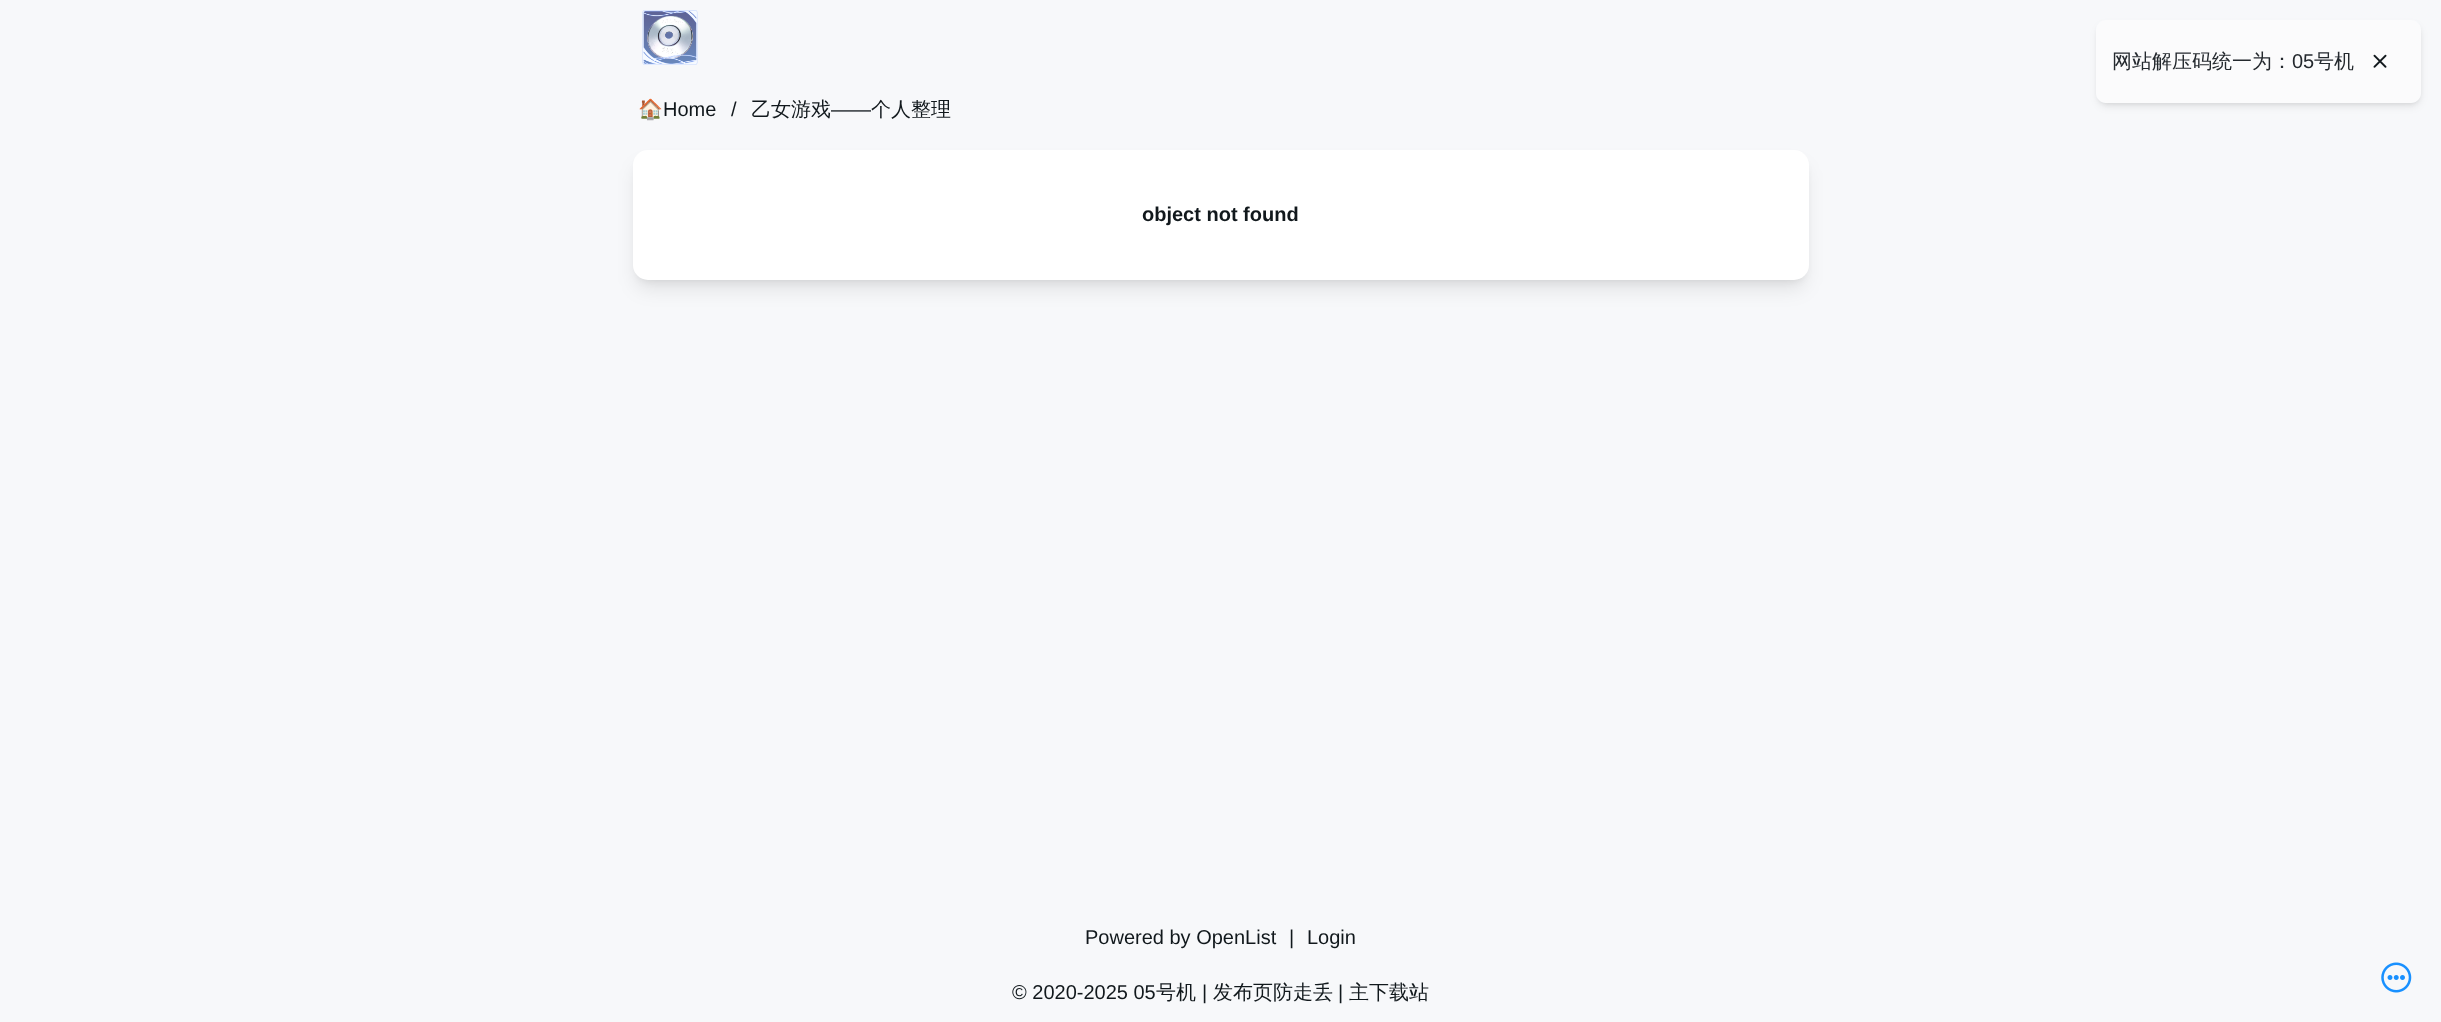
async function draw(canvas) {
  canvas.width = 2441
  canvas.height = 1022
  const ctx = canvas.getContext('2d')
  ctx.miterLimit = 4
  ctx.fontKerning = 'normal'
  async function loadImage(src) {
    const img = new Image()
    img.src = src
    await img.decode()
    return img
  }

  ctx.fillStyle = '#f7f8fa'
  ctx.fillRect(0, 0, 2441, 1022)
  ctx.save()
  ctx.beginPath()
  ctx.moveTo(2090, 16)
  ctx.lineTo(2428, 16)
  ctx.lineTo(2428, 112)
  ctx.lineTo(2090, 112)
  ctx.closePath()
  ctx.moveTo(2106, 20)
  ctx.lineTo(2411, 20)
  ctx.bezierCurveTo(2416.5, 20, 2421, 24.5, 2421, 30)
  ctx.lineTo(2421, 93)
  ctx.bezierCurveTo(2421, 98.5, 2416.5, 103, 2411, 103)
  ctx.lineTo(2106, 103)
  ctx.bezierCurveTo(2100.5, 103, 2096, 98.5, 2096, 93)
  ctx.lineTo(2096, 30)
  ctx.bezierCurveTo(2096, 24.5, 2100.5, 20, 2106, 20)
  ctx.closePath()
  ctx.clip('evenodd')
  ctx.fillStyle = '#0000001a'
  ctx.filter = 'blur(2.5px)'
  ctx.beginPath()
  ctx.roundRect(2099, 25, 320, 78, 8)
  ctx.fill()
  ctx.filter = 'none'
  ctx.restore()
  ctx.save()
  ctx.beginPath()
  ctx.moveTo(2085, 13)
  ctx.lineTo(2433, 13)
  ctx.lineTo(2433, 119)
  ctx.lineTo(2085, 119)
  ctx.closePath()
  ctx.moveTo(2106, 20)
  ctx.lineTo(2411, 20)
  ctx.bezierCurveTo(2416.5, 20, 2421, 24.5, 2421, 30)
  ctx.lineTo(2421, 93)
  ctx.bezierCurveTo(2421, 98.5, 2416.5, 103, 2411, 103)
  ctx.lineTo(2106, 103)
  ctx.bezierCurveTo(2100.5, 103, 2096, 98.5, 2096, 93)
  ctx.lineTo(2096, 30)
  ctx.bezierCurveTo(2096, 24.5, 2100.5, 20, 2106, 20)
  ctx.closePath()
  ctx.clip('evenodd')
  ctx.fillStyle = '#00000017'
  ctx.filter = 'blur(4px)'
  ctx.beginPath()
  ctx.roundRect(2098, 26, 322, 80, 9)
  ctx.fill()
  ctx.filter = 'none'
  ctx.restore()
  ctx.fillStyle = '#ffffff73'
  ctx.beginPath()
  ctx.roundRect(2096, 20, 325, 83, 10)
  ctx.fill()
  ctx.font = '500 20px WenQuanYi Zen Hei'
  ctx.fillStyle = '#24292e'
  ctx.fillText('网站解压码统一为：', 2112, 68)
  ctx.font = '20px Liberation Sans'
  ctx.fillText('05', 2292, 68)
  ctx.font = '500 20px WenQuanYi Zen Hei'
  ctx.fillText('号机', 2314, 68)
  ctx.drawImage(await loadImage('image0.png'), 2373, 54, 14, 14)
  ctx.drawImage(await loadImage('image1.png'), 642, 10, 56, 55)
  ctx.font = '20px Noto Color Emoji'
  ctx.fillStyle = '#11181c'
  ctx.fillText('🏠', 638, 116)
  ctx.font = '20px Liberation Sans'
  ctx.fillText('Home', 663, 116)
  ctx.fillText('/', 731, 116)
  ctx.font = '500 20px WenQuanYi Zen Hei'
  ctx.fillText('乙女游戏', 751, 116)
  ctx.font = '20px Liberation Sans'
  ctx.fillText('——', 831, 116)
  ctx.font = '500 20px WenQuanYi Zen Hei'
  ctx.fillText('个人整理', 871, 116)
  ctx.fillStyle = '#0000001a'
  ctx.filter = 'blur(4px)'
  ctx.beginPath()
  ctx.roundRect(638, 160, 1166, 120, 10)
  ctx.fill()
  ctx.filter = 'none'
  ctx.fillStyle = '#00000017'
  ctx.filter = 'blur(9.5px)'
  ctx.beginPath()
  ctx.roundRect(636, 166, 1169, 123, 11)
  ctx.fill()
  ctx.filter = 'none'
  ctx.fillStyle = '#fff'
  ctx.beginPath()
  ctx.roundRect(633, 150, 1176, 130, 15)
  ctx.fill()
  ctx.font = 'bold 20px Liberation Sans'
  ctx.fillStyle = '#11181c'
  ctx.fillText('object not found', 1142, 221)
  ctx.font = '20px Liberation Sans'
  ctx.fillText('Powered by OpenList', 1085, 944)
  ctx.fillText('|', 1289, 944)
  ctx.fillText('Login', 1307, 944)
  ctx.fillText('© 2020-2025 05', 1012, 999)
  ctx.font = '500 20px WenQuanYi Zen Hei'
  ctx.fillText('号机', 1156, 999)
  ctx.font = '20px Liberation Sans'
  ctx.fillText('|', 1202, 999)
  ctx.font = '500 20px WenQuanYi Zen Hei'
  ctx.fillText('发布页防走丢', 1213, 999)
  ctx.font = '20px Liberation Sans'
  ctx.fillText('|', 1338, 999)
  ctx.font = '500 20px WenQuanYi Zen Hei'
  ctx.fillText('主下载站', 1349, 999)
  ctx.drawImage(await loadImage('image2.png'), 2381, 962, 31, 31)
}

draw(document.querySelector('canvas'))
